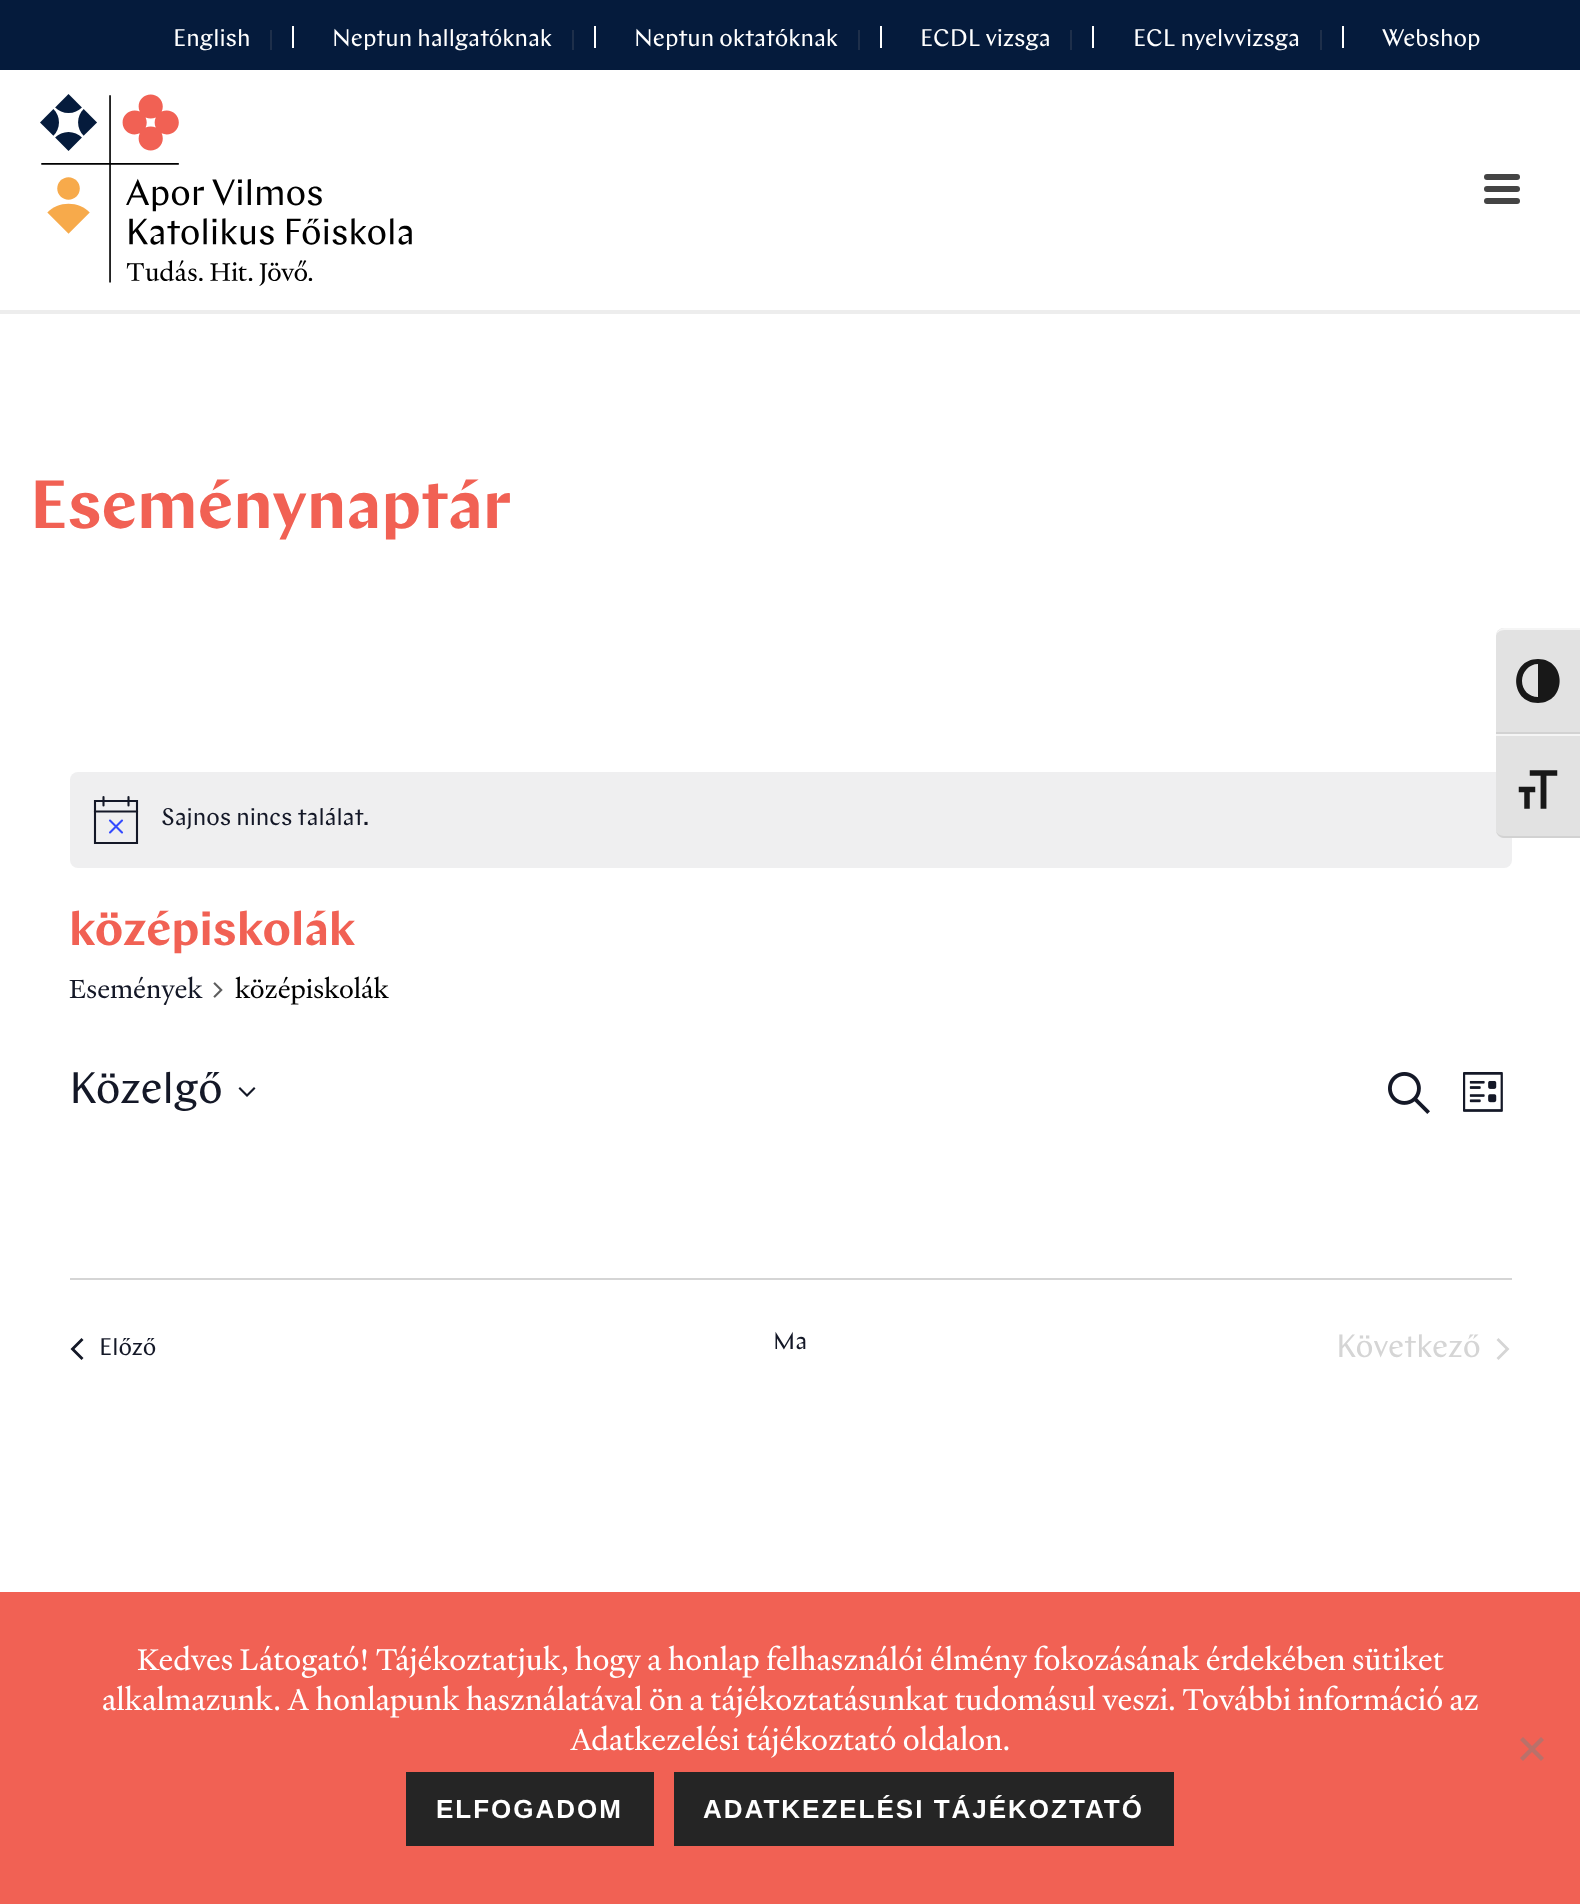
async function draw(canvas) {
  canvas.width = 1580
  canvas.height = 1904
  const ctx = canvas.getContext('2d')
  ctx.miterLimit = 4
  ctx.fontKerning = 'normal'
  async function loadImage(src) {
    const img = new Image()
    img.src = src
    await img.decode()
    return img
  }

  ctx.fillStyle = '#fff'
  ctx.fillRect(0, 0, 1580, 1904)
  ctx.fillStyle = '#ededed'
  ctx.fillRect(0, 310, 1580, 4)
  ctx.fillStyle = '#051b3c'
  ctx.fillRect(0, 0, 1580, 70)
  ctx.fillStyle = '#1e2f4a'
  ctx.fillRect(270, 30, 2, 20)
  ctx.font = '24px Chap'
  ctx.fillStyle = '#fff'
  ctx.fillText('English', 173, 46)
  ctx.fillRect(292, 26, 2, 22)
  ctx.fillStyle = '#1e2f4a'
  ctx.fillRect(572, 30, 2, 20)
  ctx.fillStyle = '#fff'
  ctx.fillText('Neptun hallgatóknak', 332, 46)
  ctx.fillRect(594, 26, 2, 22)
  ctx.fillStyle = '#1e2f4a'
  ctx.fillRect(858, 30, 2, 20)
  ctx.fillStyle = '#fff'
  ctx.fillText('Neptun oktatóknak', 634, 46)
  ctx.fillRect(880, 26, 2, 22)
  ctx.fillStyle = '#1e2f4a'
  ctx.fillRect(1070, 30, 2, 20)
  ctx.fillStyle = '#fff'
  ctx.fillText('ECDL vizsga', 920, 46)
  ctx.fillRect(1092, 26, 2, 22)
  ctx.fillStyle = '#1e2f4a'
  ctx.fillRect(1320, 30, 2, 20)
  ctx.fillStyle = '#fff'
  ctx.fillText('ECL nyelvvizsga', 1133, 46)
  ctx.fillRect(1342, 26, 2, 22)
  ctx.fillText('Webshop', 1382, 46)
  ctx.drawImage(await loadImage('image0.png'), 40, 94, 372, 192)
  ctx.fillStyle = '#444'
  ctx.beginPath()
  ctx.roundRect(1484, 174, 36, 6, 3)
  ctx.fill()
  ctx.beginPath()
  ctx.roundRect(1484, 186, 36, 6, 3)
  ctx.fill()
  ctx.beginPath()
  ctx.roundRect(1484, 198, 36, 6, 3)
  ctx.fill()
  ctx.font = '600 68px Chap'
  ctx.fillStyle = '#f16154'
  ctx.fillText('Eseménynaptár', 30, 528)
  ctx.fillStyle = '#efeff0'
  ctx.beginPath()
  ctx.roundRect(70, 772, 1442, 96, 8)
  ctx.fill()
  ctx.beginPath()
  ctx.moveTo(95, 801)
  ctx.lineTo(137, 801)
  ctx.lineTo(137, 843)
  ctx.lineTo(95, 843)
  ctx.closePath()
  ctx.strokeStyle = '#141827'
  ctx.lineWidth = 2.1
  ctx.stroke()
  ctx.beginPath()
  ctx.moveTo(110, 820.5)
  ctx.lineTo(122, 832.5)
  ctx.moveTo(122, 820.5)
  ctx.lineTo(110, 832.5)
  ctx.strokeStyle = '#334aff'
  ctx.lineCap = 'round'
  ctx.stroke()
  ctx.beginPath()
  ctx.moveTo(103.5, 797)
  ctx.lineTo(103.5, 805.5)
  ctx.moveTo(128.5, 797)
  ctx.lineTo(128.5, 805.5)
  ctx.strokeStyle = '#141827'
  ctx.stroke()
  ctx.beginPath()
  ctx.moveTo(95, 811.5)
  ctx.lineTo(137, 811.5)
  ctx.lineCap = 'square'
  ctx.stroke()
  ctx.font = '24px Chap'
  ctx.fillStyle = '#141827'
  ctx.fillText('Sajnos nincs találat.', 161, 825)
  ctx.font = '600 48px Chap'
  ctx.fillStyle = '#f16154'
  ctx.fillText('középiskolák', 69, 945)
  ctx.font = '28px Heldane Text'
  ctx.fillStyle = '#141827'
  ctx.fillText('Események', 69, 998)
  ctx.drawImage(await loadImage('image1.png'), 213, 982, 10, 16)
  ctx.fillStyle = '#000'
  ctx.fillText('középiskolák', 235, 998)
  ctx.font = '44px Chap'
  ctx.fillStyle = '#141827'
  ctx.fillText('Közelgő', 69, 1103)
  ctx.beginPath()
  ctx.moveTo(240, 1087)
  ctx.lineTo(247, 1094)
  ctx.lineTo(254, 1087)
  ctx.lineTo(255.5, 1088.5)
  ctx.lineTo(247, 1097)
  ctx.lineTo(238.5, 1088.5)
  ctx.closePath()
  ctx.fill('evenodd')
  ctx.drawImage(await loadImage('image2.png'), 1388, 1072, 42, 42)
  ctx.drawImage(await loadImage('image3.png'), 1463, 1072, 40, 40)
  ctx.fillStyle = '#d5d5d5'
  ctx.fillRect(70, 1278, 1442, 2)
  ctx.fillStyle = '#141827'
  ctx.beginPath()
  ctx.moveTo(83.5, 1358)
  ctx.lineTo(81.5, 1360)
  ctx.lineTo(70.5, 1349)
  ctx.lineTo(81.5, 1338)
  ctx.lineTo(83.5, 1340)
  ctx.lineTo(74.5, 1349)
  ctx.closePath()
  ctx.fill()
  ctx.font = '24px Chap'
  ctx.fillText('Előző', 99, 1355)
  ctx.fillText('Ma', 773, 1349)
  ctx.font = '32px Chap'
  ctx.fillStyle = '#d5d5d5'
  ctx.fillText('Következő', 1336, 1357)
  ctx.beginPath()
  ctx.moveTo(1496.5, 1340)
  ctx.lineTo(1498.5, 1338)
  ctx.lineTo(1509.5, 1349)
  ctx.lineTo(1498.5, 1360)
  ctx.lineTo(1496.5, 1358)
  ctx.lineTo(1505.5, 1349)
  ctx.closePath()
  ctx.fill()
  ctx.fillStyle = '#e2e2e2'
  ctx.beginPath()
  ctx.roundRect(1496, 628, 84, 106, [8, 0, 0, 0])
  ctx.fill()
  ctx.fillStyle = '#f5f5f5'
  ctx.beginPath()
  ctx.moveTo(1504, 630)
  ctx.lineTo(1580, 630)
  ctx.lineTo(1580, 628)
  ctx.lineTo(1504, 628)
  ctx.bezierCurveTo(1500, 628, 1496, 632, 1496, 636)
  ctx.bezierCurveTo(1496, 633, 1500, 630, 1504, 630)
  ctx.closePath()
  ctx.fill()
  ctx.fillStyle = '#d2d2d2'
  ctx.fillRect(1496, 732, 84, 2)
  ctx.fillStyle = '#181818'
  ctx.beginPath()
  ctx.moveTo(1538, 659)
  ctx.bezierCurveTo(1509, 659, 1509, 703, 1538, 703)
  ctx.bezierCurveTo(1567, 703, 1567, 659, 1538, 659)
  ctx.closePath()
  ctx.moveTo(1522, 681)
  ctx.bezierCurveTo(1522, 672, 1529, 664, 1538, 664)
  ctx.lineTo(1538, 697)
  ctx.bezierCurveTo(1529, 697, 1522, 690, 1522, 681)
  ctx.closePath()
  ctx.fill()
  ctx.fillStyle = '#e2e2e2'
  ctx.beginPath()
  ctx.roundRect(1496, 734, 84, 104, [0, 0, 0, 8])
  ctx.fill()
  ctx.fillStyle = '#f5f5f5'
  ctx.fillRect(1496, 734, 84, 2)
  ctx.fillStyle = '#d2d2d2'
  ctx.beginPath()
  ctx.moveTo(1580, 838)
  ctx.lineTo(1580, 836)
  ctx.lineTo(1504, 836)
  ctx.bezierCurveTo(1500, 836, 1496, 833, 1496, 830)
  ctx.bezierCurveTo(1496, 834, 1500, 838, 1504, 838)
  ctx.closePath()
  ctx.fill()
  ctx.drawImage(await loadImage('image4.png'), 1518, 770, 40, 39)
  ctx.fillStyle = '#f16154'
  ctx.fillRect(0, 1592, 1580, 312)
  ctx.font = '32px Heldane Text'
  ctx.fillStyle = '#fff'
  ctx.fillText('Kedves Látogató! Tájékoztatjuk, hogy a honlap felhasználói élmény fokozásának érdekében sütiket', 137, 1670)
  ctx.fillText('alkalmazunk. A honlapunk használatával ön a tájékoztatásunkat tudomásul veszi. További információ az', 102, 1710)
  ctx.fillText('Adatkezelési tájékoztató oldalon.', 570, 1750)
  ctx.fillStyle = '#b9716a'
  ctx.beginPath()
  ctx.moveTo(1541, 1737)
  ctx.lineTo(1544, 1740)
  ctx.lineTo(1523, 1761)
  ctx.lineTo(1520, 1758)
  ctx.closePath()
  ctx.fill()
  ctx.beginPath()
  ctx.moveTo(1520, 1740)
  ctx.lineTo(1523, 1737)
  ctx.lineTo(1544, 1758)
  ctx.lineTo(1541, 1761)
  ctx.closePath()
  ctx.fill()
  ctx.fillStyle = '#252525'
  ctx.fillRect(406, 1772, 248, 74)
  ctx.letterSpacing = '2px'
  ctx.font = 'bold 26px Liberation Sans'
  ctx.fillStyle = '#fff'
  ctx.fillText('ELFOGADOM', 436, 1818)
  ctx.fillStyle = '#252525'
  ctx.fillRect(674, 1772, 500, 74)
  ctx.fillStyle = '#fff'
  ctx.fillText('ADATKEZELÉSI TÁJÉKOZTATÓ', 703, 1818)
}

draw(document.querySelector('canvas'))
